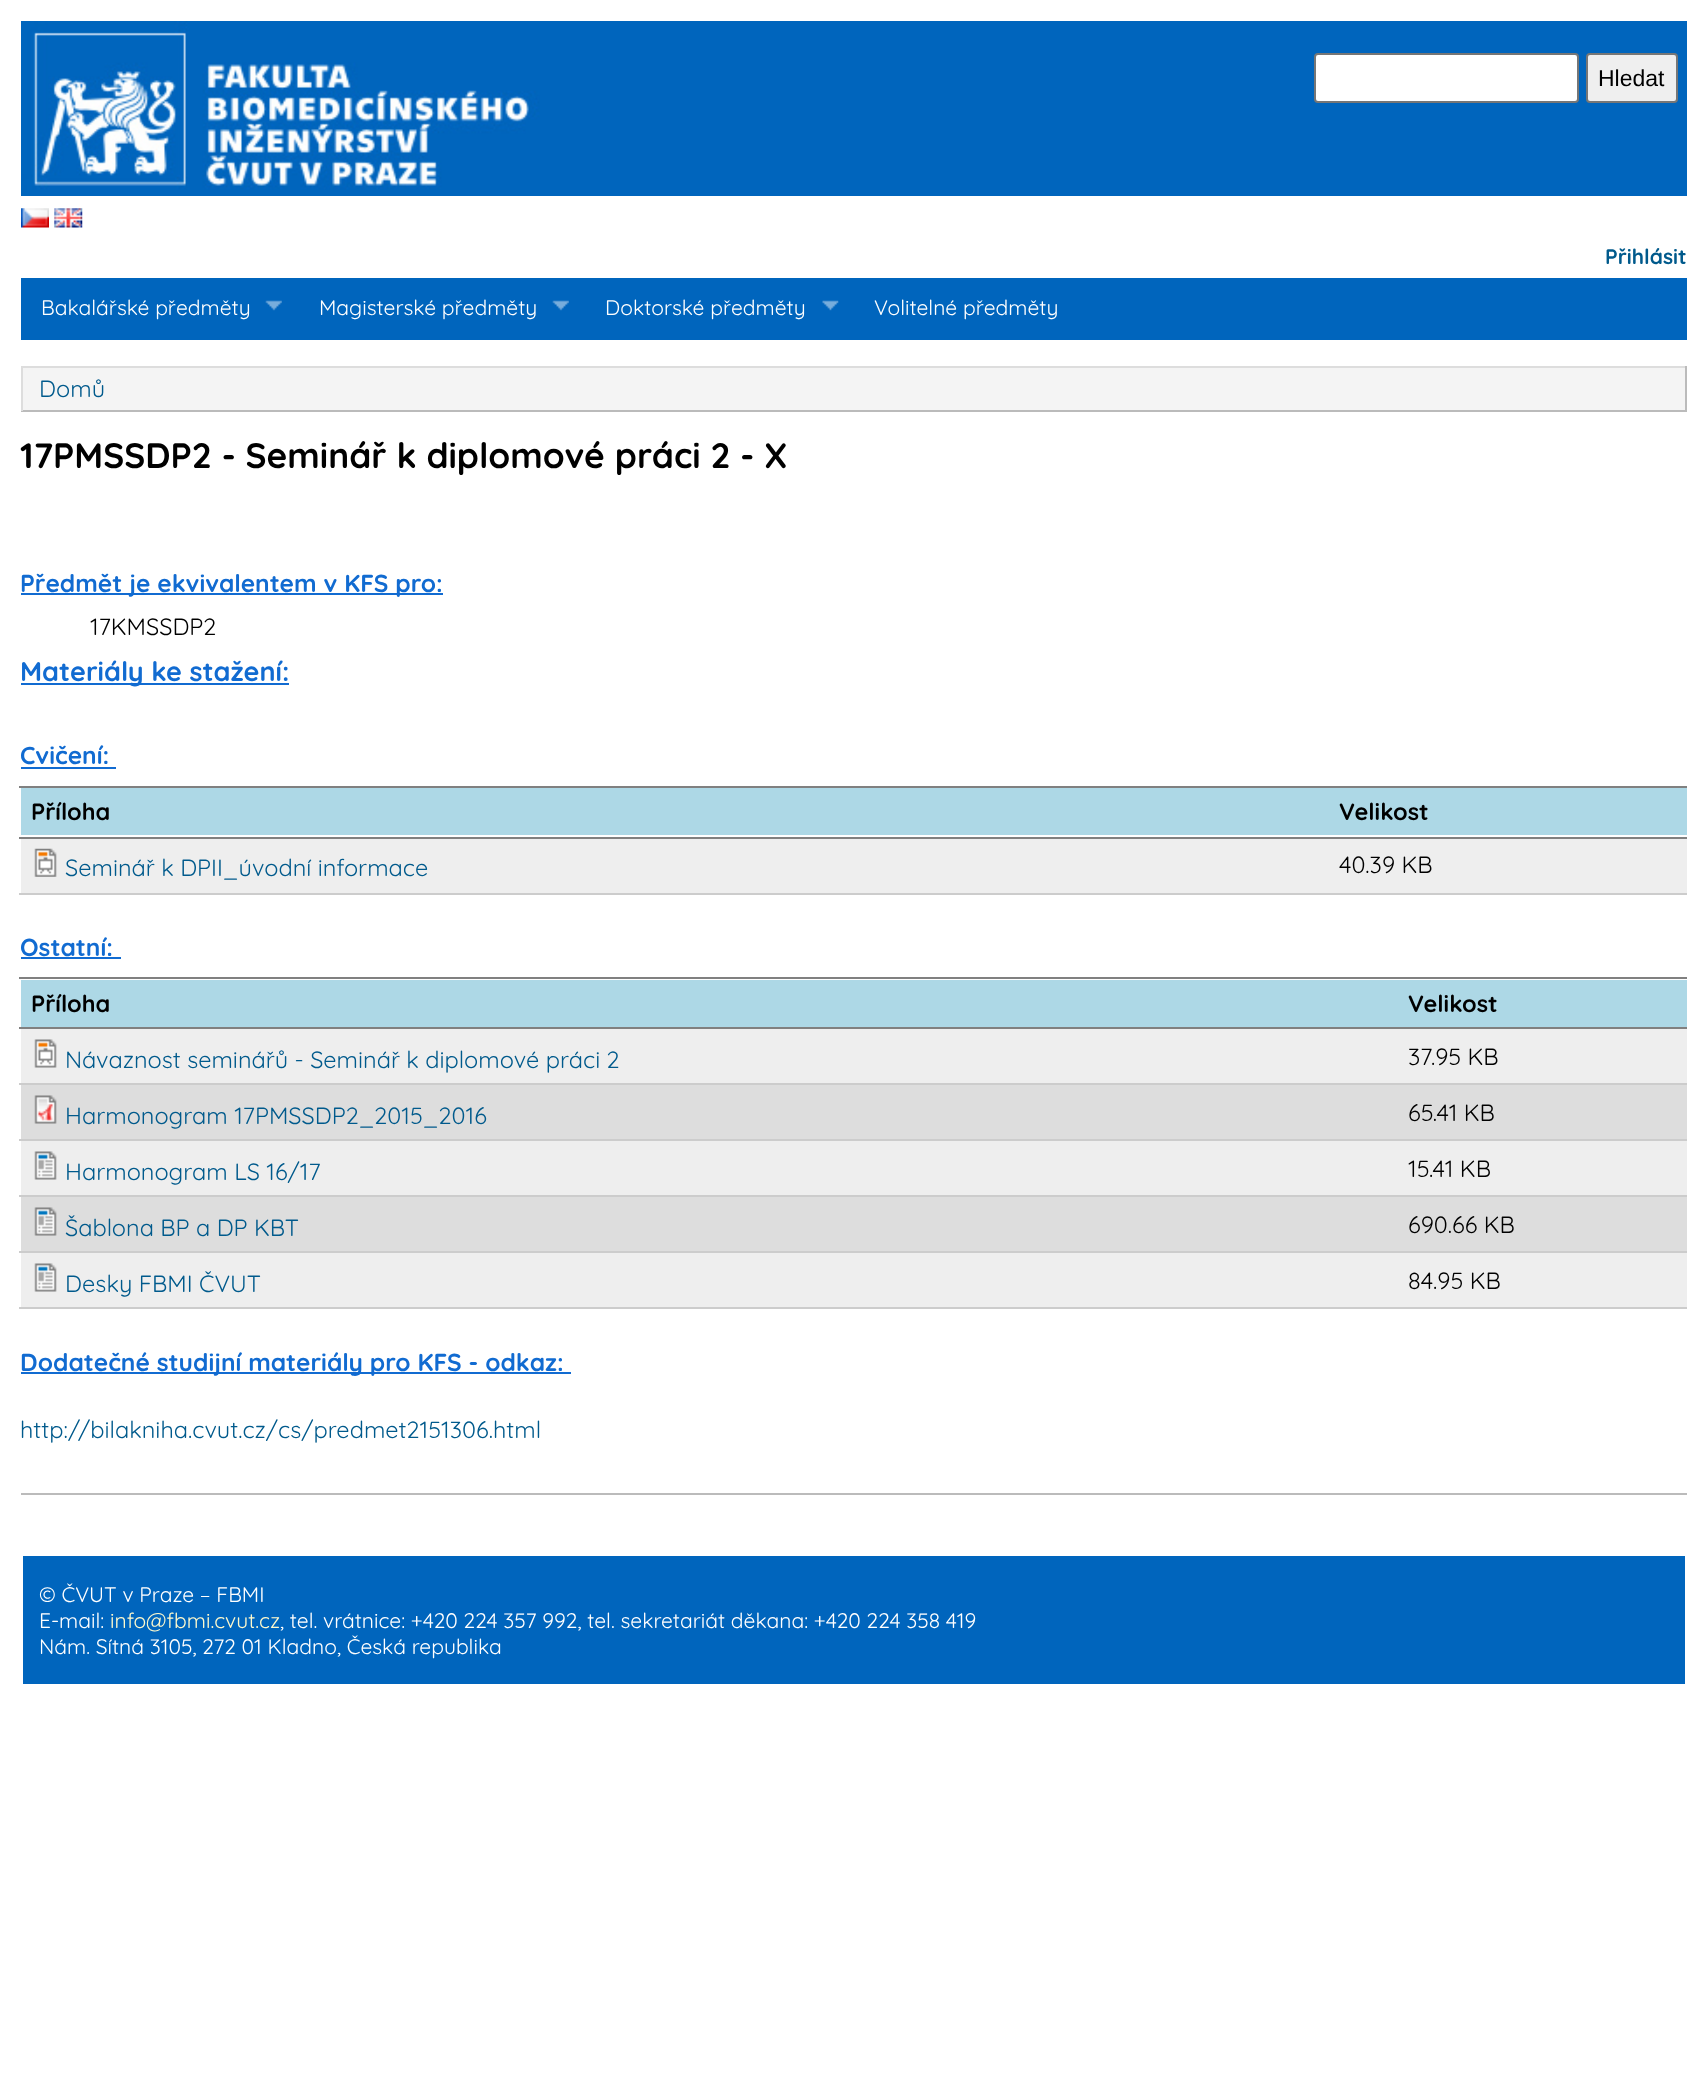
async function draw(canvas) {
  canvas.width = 1706
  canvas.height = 2079
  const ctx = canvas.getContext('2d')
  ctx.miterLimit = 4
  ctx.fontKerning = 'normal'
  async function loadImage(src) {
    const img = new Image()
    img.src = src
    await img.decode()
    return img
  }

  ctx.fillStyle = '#fff'
  ctx.fillRect(0, 0, 1706, 2079)
  ctx.drawImage(await loadImage('image0.png'), 21, 21, 1666, 175)
  ctx.drawImage(await loadImage('image1.png'), 21, 208, 28, 20)
  ctx.drawImage(await loadImage('image2.png'), 54, 208, 29, 20)
  ctx.beginPath()
  ctx.roundRect(1315, 54, 263, 48, 3)
  ctx.fill()
  ctx.strokeStyle = '#767676'
  ctx.lineWidth = 2
  ctx.stroke()
  ctx.fillStyle = '#efefef'
  ctx.beginPath()
  ctx.roundRect(1587, 54, 90, 48, 3)
  ctx.fill()
  ctx.stroke()
  ctx.font = '23px Liberation Sans'
  ctx.fillStyle = '#000'
  ctx.fillText('Hledat', 1598, 86)
  ctx.font = 'bold 21px Quicksand'
  ctx.fillStyle = '#005a8c'
  ctx.fillText('Přihlásit', 1605, 264)
  ctx.fillStyle = '#0065bd'
  ctx.fillRect(21, 278, 1666, 62)
  ctx.font = '21px Quicksand'
  ctx.fillStyle = '#fff'
  ctx.fillText('Bakalářské předměty', 41, 315)
  ctx.drawImage(await loadImage('image3.png'), 265, 300, 17, 11)
  ctx.fillText('Magisterské předměty', 319, 315)
  ctx.drawImage(await loadImage('image4.png'), 552, 300, 17, 11)
  ctx.fillText('Doktorské předměty', 605, 315)
  ctx.drawImage(await loadImage('image5.png'), 822, 300, 17, 11)
  ctx.fillText('Volitelné předměty', 874, 315)
  ctx.fillStyle = '#f4f4f4'
  ctx.fillRect(23, 368, 1662, 42)
  ctx.fillStyle = '#ddd'
  ctx.fillRect(21, 366, 1666, 2)
  ctx.fillStyle = '#bbb'
  ctx.fillRect(1685, 366, 2, 45)
  ctx.fillRect(21, 410, 1666, 2)
  ctx.fillStyle = '#ddd'
  ctx.fillRect(21, 366, 2, 45)
  ctx.font = '23.5px Quicksand'
  ctx.fillStyle = '#005a8c'
  ctx.fillText('Domů', 39, 397)
  ctx.font = 'bold 35.25px Quicksand'
  ctx.fillStyle = '#000'
  ctx.fillText('17PMSSDP2 - Seminář k diplomové práci 2 - X', 20, 468)
  ctx.fillStyle = '#bbb'
  ctx.fillRect(21, 1493, 1666, 2)
  ctx.fillStyle = '#116bd1'
  ctx.fillRect(21, 593, 422, 2)
  ctx.font = 'bold 24.5px Quicksand'
  ctx.fillText('Předmět je ekvivalentem v KFS pro:', 20, 592)
  ctx.font = '23.5px Quicksand'
  ctx.fillStyle = '#000'
  ctx.fillText('17KMSSDP2', 90, 635)
  ctx.fillStyle = '#116bd1'
  ctx.fillRect(21, 683, 268, 2)
  ctx.font = 'bold 27px Quicksand'
  ctx.fillText('Materiály ke stažení:', 20, 681)
  ctx.font = 'bold 24.5px Quicksand'
  ctx.fillText('Cvičení:', 20, 764)
  ctx.fillRect(21, 767, 95, 2)
  ctx.fillStyle = '#add8e6'
  ctx.fillRect(21, 788, 1666, 47)
  ctx.font = 'bold 23.5px Quicksand'
  ctx.fillStyle = '#000'
  ctx.fillText('Příloha', 31, 820)
  ctx.fillStyle = '#808080'
  ctx.fillRect(19, 786, 1668, 2)
  ctx.fillRect(19, 837, 1668, 2)
  ctx.fillStyle = '#000'
  ctx.fillText('Velikost', 1339, 820)
  ctx.fillStyle = '#eee'
  ctx.fillRect(21, 839, 1666, 54)
  ctx.fillStyle = '#ccc'
  ctx.fillRect(19, 893, 1668, 2)
  ctx.drawImage(await loadImage('image6.png'), 34, 848, 23, 29)
  ctx.font = '23.5px Quicksand'
  ctx.fillStyle = '#005a8c'
  ctx.fillText('Seminář k DPII_úvodní informace', 65, 876)
  ctx.fillStyle = '#000'
  ctx.fillText('40.39 KB', 1339, 873)
  ctx.font = 'bold 24.5px Quicksand'
  ctx.fillStyle = '#116bd1'
  ctx.fillText('Ostatní:', 20, 956)
  ctx.fillRect(21, 957, 100, 2)
  ctx.fillStyle = '#add8e6'
  ctx.fillRect(21, 980, 1666, 47)
  ctx.font = 'bold 23.5px Quicksand'
  ctx.fillStyle = '#000'
  ctx.fillText('Příloha', 31, 1012)
  ctx.fillStyle = '#808080'
  ctx.fillRect(19, 977, 1668, 2)
  ctx.fillRect(19, 1027, 1668, 2)
  ctx.fillStyle = '#000'
  ctx.fillText('Velikost', 1408, 1012)
  ctx.fillStyle = '#eee'
  ctx.fillRect(21, 1029, 1666, 54)
  ctx.fillStyle = '#ccc'
  ctx.fillRect(19, 1083, 1668, 2)
  ctx.drawImage(await loadImage('image7.png'), 34, 1039, 23, 29)
  ctx.font = '23.5px Quicksand'
  ctx.fillStyle = '#005a8c'
  ctx.fillText('Návaznost seminářů - Seminář k diplomové práci 2', 65, 1068)
  ctx.fillStyle = '#000'
  ctx.fillText('37.95 KB', 1408, 1065)
  ctx.fillStyle = '#ddd'
  ctx.fillRect(21, 1085, 1666, 54)
  ctx.fillStyle = '#ccc'
  ctx.fillRect(19, 1139, 1668, 2)
  ctx.drawImage(await loadImage('image8.png'), 34, 1095, 23, 29)
  ctx.fillStyle = '#005a8c'
  ctx.fillText('Harmonogram 17PMSSDP2_2015_2016', 65, 1124)
  ctx.fillStyle = '#000'
  ctx.fillText('65.41 KB', 1408, 1121)
  ctx.fillStyle = '#eee'
  ctx.fillRect(21, 1141, 1666, 54)
  ctx.fillStyle = '#ccc'
  ctx.fillRect(19, 1195, 1668, 2)
  ctx.drawImage(await loadImage('image9.png'), 34, 1151, 23, 29)
  ctx.fillStyle = '#005a8c'
  ctx.fillText('Harmonogram LS 16/17', 65, 1180)
  ctx.fillStyle = '#000'
  ctx.fillText('15.41 KB', 1408, 1177)
  ctx.fillStyle = '#ddd'
  ctx.fillRect(21, 1197, 1666, 54)
  ctx.fillStyle = '#ccc'
  ctx.fillRect(19, 1251, 1668, 2)
  ctx.drawImage(await loadImage('image10.png'), 34, 1207, 23, 29)
  ctx.fillStyle = '#005a8c'
  ctx.fillText('Šablona BP a DP KBT', 65, 1236)
  ctx.fillStyle = '#000'
  ctx.fillText('690.66 KB', 1408, 1233)
  ctx.fillStyle = '#eee'
  ctx.fillRect(21, 1253, 1666, 54)
  ctx.fillStyle = '#ccc'
  ctx.fillRect(19, 1307, 1668, 2)
  ctx.drawImage(await loadImage('image9.png'), 34, 1263, 23, 29)
  ctx.fillStyle = '#005a8c'
  ctx.fillText('Desky FBMI ČVUT', 65, 1292)
  ctx.fillStyle = '#000'
  ctx.fillText('84.95 KB', 1408, 1289)
  ctx.fillStyle = '#116bd1'
  ctx.fillRect(21, 1372, 550, 2)
  ctx.font = 'bold 24.5px Quicksand'
  ctx.fillText('Dodatečné studijní materiály pro KFS - odkaz:', 20, 1371)
  ctx.font = '23.5px Quicksand'
  ctx.fillStyle = '#005a8c'
  ctx.fillText('http://bilakniha.cvut.cz/cs/predmet2151306.html', 20, 1438)
  ctx.fillStyle = '#0065bd'
  ctx.fillRect(23, 1556, 1662, 128)
  ctx.font = '21px Quicksand'
  ctx.fillStyle = '#fff'
  ctx.fillText('© ČVUT v Praze – FBMI', 39, 1602)
  ctx.fillText('E-mail:', 39, 1628)
  ctx.fillStyle = '#fffacd'
  ctx.fillText('info@fbmi.cvut.cz', 110, 1628)
  ctx.fillStyle = '#fff'
  ctx.fillText(', tel. vrátnice: +420 224 357 992, tel. sekretariát děkana: +420 224 358 419', 280, 1628)
  ctx.fillText('Nám. Sítná 3105, 272 01 Kladno, Česká republika', 39, 1654)
}

draw(document.querySelector('canvas'))
